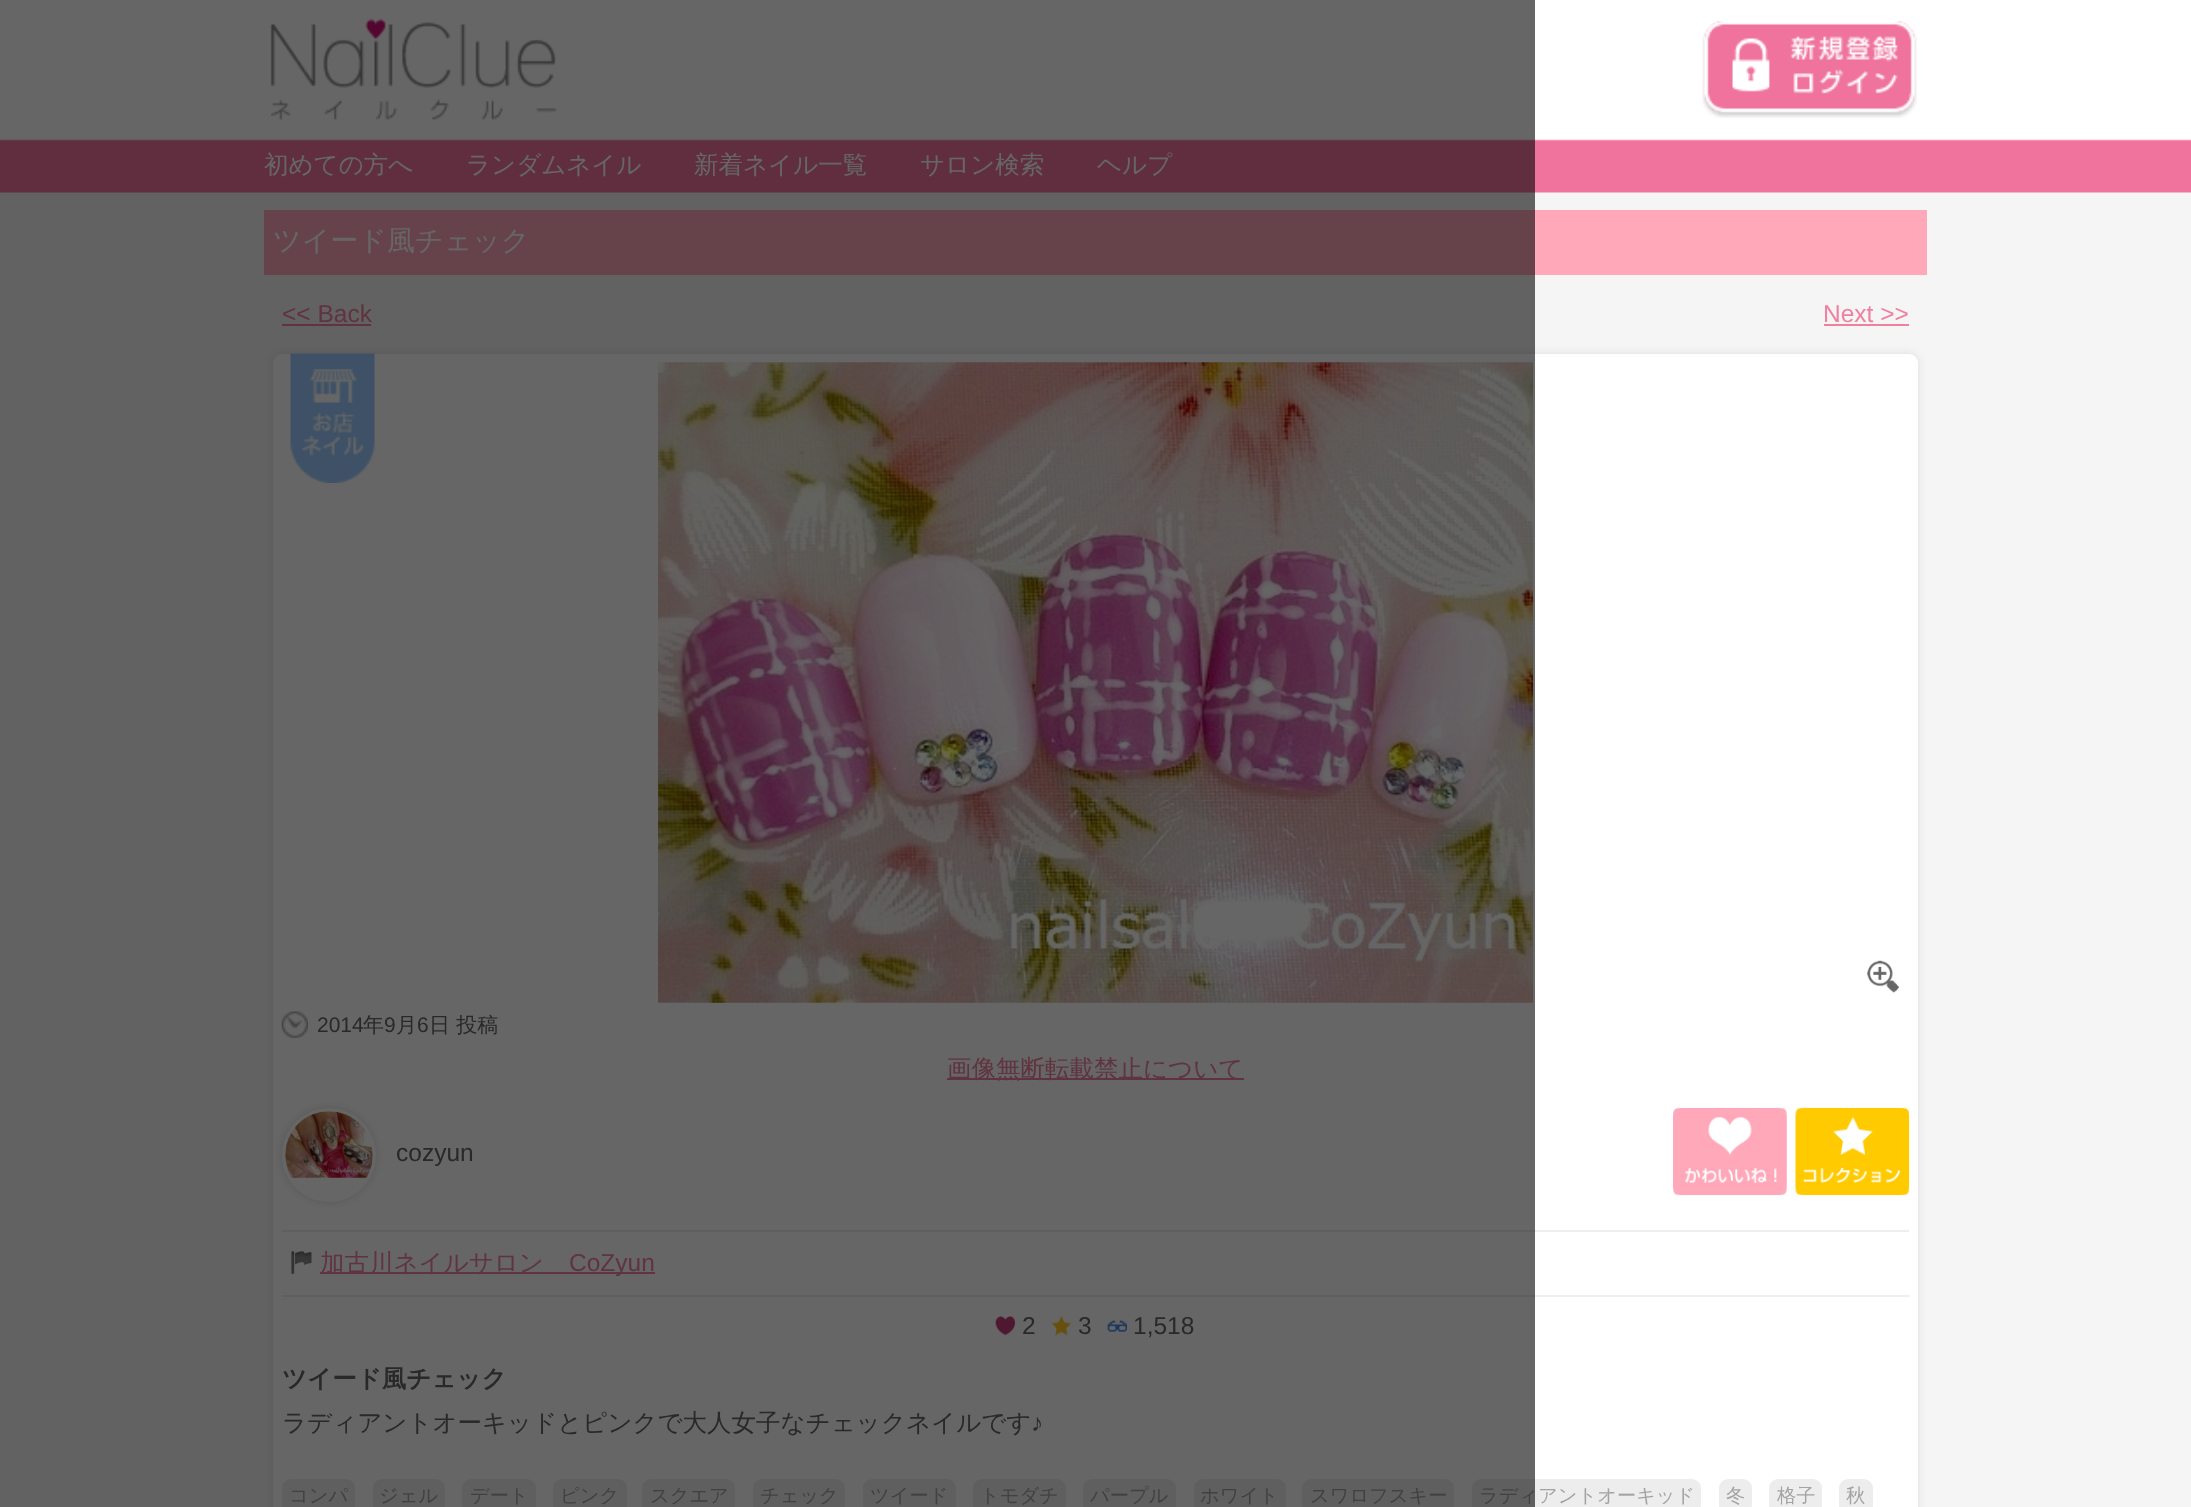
async function draw(canvas) {
  canvas.width = 2191
  canvas.height = 1507
  const ctx = canvas.getContext('2d')
  ctx.miterLimit = 4
  ctx.fontKerning = 'normal'
  async function loadImage(src) {
    const img = new Image()
    img.src = src
    await img.decode()
    return img
  }

  ctx.fillStyle = '#f5f5f5'
  ctx.fillRect(0, 0, 2191, 1507)
  ctx.drawImage(await loadImage('image0.png'), 0, 0, 2191, 193)
  ctx.drawImage(await loadImage('image1.png'), 270, 18, 287, 103)
  ctx.drawImage(await loadImage('image2.png'), 1702, 21, 215, 97)
  ctx.font = '500 24.5px WenQuanYi Zen Hei'
  ctx.fillStyle = '#fff'
  ctx.fillText('初めての方へ', 264, 173)
  ctx.fillText('ランダムネイル', 466, 173)
  ctx.fillText('新着ネイル一覧', 694, 173)
  ctx.fillText('サロン検索', 920, 173)
  ctx.fillText('ヘルプ', 1097, 173)
  ctx.fillStyle = '#fea8ba'
  ctx.fillRect(264, 210, 1663, 65)
  ctx.font = '500 28px WenQuanYi Zen Hei'
  ctx.fillStyle = '#fff'
  ctx.fillText('ツイード風チェック', 273, 250)
  ctx.font = '24.5px Liberation Sans'
  ctx.fillStyle = '#ef80a0'
  ctx.fillText('<< Back', 282, 322)
  ctx.fillRect(282, 324, 89, 2)
  ctx.fillStyle = '#ddd'
  ctx.filter = 'blur(4.5px)'
  ctx.beginPath()
  ctx.roundRect(273, 354, 1645, 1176, 9)
  ctx.fill()
  ctx.filter = 'none'
  ctx.fillStyle = '#fff'
  ctx.beginPath()
  ctx.roundRect(273, 354, 1645, 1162, 9)
  ctx.fill()
  ctx.drawImage(await loadImage('image3.png'), 290, 353, 85, 130)
  ctx.drawImage(await loadImage('image4.png'), 658, 362, 875, 641)
  ctx.drawImage(await loadImage('image6.png'), 281, 1011, 27, 27)
  ctx.font = '21px Liberation Sans'
  ctx.fillStyle = '#666'
  ctx.fillText('2014', 317, 1032)
  ctx.font = '500 21px WenQuanYi Zen Hei'
  ctx.fillText('年', 363, 1032)
  ctx.font = '21px Liberation Sans'
  ctx.fillText('9', 384, 1032)
  ctx.font = '500 21px WenQuanYi Zen Hei'
  ctx.fillText('月', 396, 1032)
  ctx.font = '21px Liberation Sans'
  ctx.fillText('6', 417, 1032)
  ctx.font = '500 21px WenQuanYi Zen Hei'
  ctx.fillText('日 投稿', 429, 1032)
  ctx.fillStyle = '#ef80a0'
  ctx.fillRect(947, 1078, 297, 2)
  ctx.font = '500 24.5px WenQuanYi Zen Hei'
  ctx.fillText('画像無断転載禁止について', 947, 1077)
  ctx.save()
  ctx.beginPath()
  ctx.moveTo(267, 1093)
  ctx.lineTo(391, 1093)
  ctx.lineTo(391, 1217)
  ctx.lineTo(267, 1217)
  ctx.closePath()
  ctx.moveTo(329, 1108)
  ctx.bezierCurveTo(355, 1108, 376, 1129, 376, 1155)
  ctx.bezierCurveTo(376, 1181, 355, 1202, 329, 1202)
  ctx.bezierCurveTo(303, 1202, 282, 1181, 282, 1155)
  ctx.bezierCurveTo(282, 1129, 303, 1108, 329, 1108)
  ctx.closePath()
  ctx.clip('evenodd')
  ctx.fillStyle = '#ddd'
  ctx.filter = 'blur(4.5px)'
  ctx.beginPath()
  ctx.roundRect(282, 1108, 94, 94, 47)
  ctx.fill()
  ctx.filter = 'none'
  ctx.restore()
  ctx.drawImage(await loadImage('image7.png'), 285, 1111, 88, 67)
  ctx.font = '24.5px Liberation Sans'
  ctx.fillStyle = '#666'
  ctx.fillText('cozyun', 396, 1161)
  ctx.fillStyle = '#eee'
  ctx.fillRect(282, 1230, 1627, 2)
  ctx.drawImage(await loadImage('image10.png'), 291, 1251, 21, 23)
  ctx.fillStyle = '#ef80a0'
  ctx.fillRect(320, 1272, 335, 2)
  ctx.font = '500 24.5px WenQuanYi Zen Hei'
  ctx.fillText('加古川ネイルサロン', 320, 1271)
  ctx.font = '24.5px Liberation Sans'
  ctx.fillText('CoZyun', 569, 1271)
  ctx.fillStyle = '#eee'
  ctx.fillRect(282, 1295, 1627, 2)
  ctx.drawImage(await loadImage('image11.png'), 995, 1316, 20, 20)
  ctx.fillStyle = '#666'
  ctx.fillText('2', 1022, 1334)
  ctx.drawImage(await loadImage('image12.png'), 1051, 1316, 20, 20)
  ctx.fillText('3', 1078, 1334)
  ctx.drawImage(await loadImage('image13.png'), 1107, 1320, 20, 12)
  ctx.fillText('1,518', 1133, 1334)
  ctx.font = 'bold 24.5px WenQuanYi Zen Hei'
  ctx.fillText('ツイード風チェック', 282, 1387)
  ctx.font = '500 24.5px WenQuanYi Zen Hei'
  ctx.fillText('ラディアントオーキッドとピンクで大人女子なチェックネイルです', 282, 1431)
  ctx.font = '24.5px Liberation Sans'
  ctx.fillText('♪', 1031, 1431)
  ctx.fillStyle = '#ededed'
  ctx.beginPath()
  ctx.roundRect(282, 1479, 73, 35, 9)
  ctx.fill()
  ctx.font = '500 19.25px WenQuanYi Zen Hei'
  ctx.fillStyle = '#a3a3a3'
  ctx.fillText('コンパ', 289, 1502)
  ctx.fillStyle = '#ededed'
  ctx.beginPath()
  ctx.roundRect(373, 1479, 72, 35, 9)
  ctx.fill()
  ctx.fillStyle = '#a3a3a3'
  ctx.fillText('ジェル', 379, 1502)
  ctx.fillStyle = '#ededed'
  ctx.beginPath()
  ctx.roundRect(462, 1479, 74, 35, 9)
  ctx.fill()
  ctx.fillStyle = '#a3a3a3'
  ctx.fillText('デート', 470, 1502)
  ctx.fillStyle = '#ededed'
  ctx.beginPath()
  ctx.roundRect(553, 1479, 74, 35, 9)
  ctx.fill()
  ctx.fillStyle = '#a3a3a3'
  ctx.fillText('ピンク', 560, 1502)
  ctx.fillStyle = '#ededed'
  ctx.beginPath()
  ctx.roundRect(642, 1479, 93, 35, 9)
  ctx.fill()
  ctx.fillStyle = '#a3a3a3'
  ctx.fillText('スクエア', 650, 1502)
  ctx.fillStyle = '#ededed'
  ctx.beginPath()
  ctx.roundRect(753, 1479, 92, 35, 9)
  ctx.fill()
  ctx.fillStyle = '#a3a3a3'
  ctx.fillText('チェック', 760, 1502)
  ctx.fillStyle = '#ededed'
  ctx.beginPath()
  ctx.roundRect(863, 1479, 93, 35, 9)
  ctx.fill()
  ctx.fillStyle = '#a3a3a3'
  ctx.fillText('ツイード', 870, 1502)
  ctx.fillStyle = '#ededed'
  ctx.beginPath()
  ctx.roundRect(973, 1479, 93, 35, 9)
  ctx.fill()
  ctx.fillStyle = '#a3a3a3'
  ctx.fillText('トモダチ', 980, 1502)
  ctx.fillStyle = '#ededed'
  ctx.beginPath()
  ctx.roundRect(1083, 1479, 93, 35, 9)
  ctx.fill()
  ctx.fillStyle = '#a3a3a3'
  ctx.fillText('パープル', 1090, 1502)
  ctx.fillStyle = '#ededed'
  ctx.beginPath()
  ctx.roundRect(1194, 1479, 92, 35, 9)
  ctx.fill()
  ctx.fillStyle = '#a3a3a3'
  ctx.fillText('ホワイト', 1200, 1502)
  ctx.fillStyle = '#ededed'
  ctx.beginPath()
  ctx.roundRect(1302, 1479, 152, 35, 9)
  ctx.fill()
  ctx.fillStyle = '#a3a3a3'
  ctx.fillText('スワロフスキー', 1310, 1502)
  ctx.fillStyle = '#ededed'
  ctx.beginPath()
  ctx.roundRect(1472, 1479, 229, 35, 9)
  ctx.fill()
  ctx.fillStyle = '#a3a3a3'
  ctx.fillText('ラディアントオーキッド', 1479, 1502)
  ctx.fillStyle = '#00000099'
  ctx.fillRect(0, 0, 1535, 1507)
  ctx.font = '24.5px Liberation Sans'
  ctx.fillStyle = '#ef80a0'
  ctx.fillText('Next >>', 1823, 322)
  ctx.fillRect(1824, 324, 85, 2)
  ctx.drawImage(await loadImage('image5.png'), 1867, 960, 32, 33)
  ctx.drawImage(await loadImage('image8.png'), 1673, 1107, 114, 89)
  ctx.drawImage(await loadImage('image9.png'), 1795, 1107, 115, 89)
  ctx.fillStyle = '#ededed'
  ctx.beginPath()
  ctx.roundRect(1719, 1479, 33, 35, 9)
  ctx.fill()
  ctx.font = '500 19.25px WenQuanYi Zen Hei'
  ctx.fillStyle = '#a3a3a3'
  ctx.fillText('冬', 1726, 1502)
  ctx.fillStyle = '#ededed'
  ctx.beginPath()
  ctx.roundRect(1769, 1479, 53, 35, 9)
  ctx.fill()
  ctx.fillStyle = '#a3a3a3'
  ctx.fillText('格子', 1777, 1502)
  ctx.fillStyle = '#ededed'
  ctx.beginPath()
  ctx.roundRect(1839, 1479, 34, 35, 9)
  ctx.fill()
  ctx.fillStyle = '#a3a3a3'
  ctx.fillText('秋', 1846, 1502)
}

draw(document.querySelector('canvas'))
